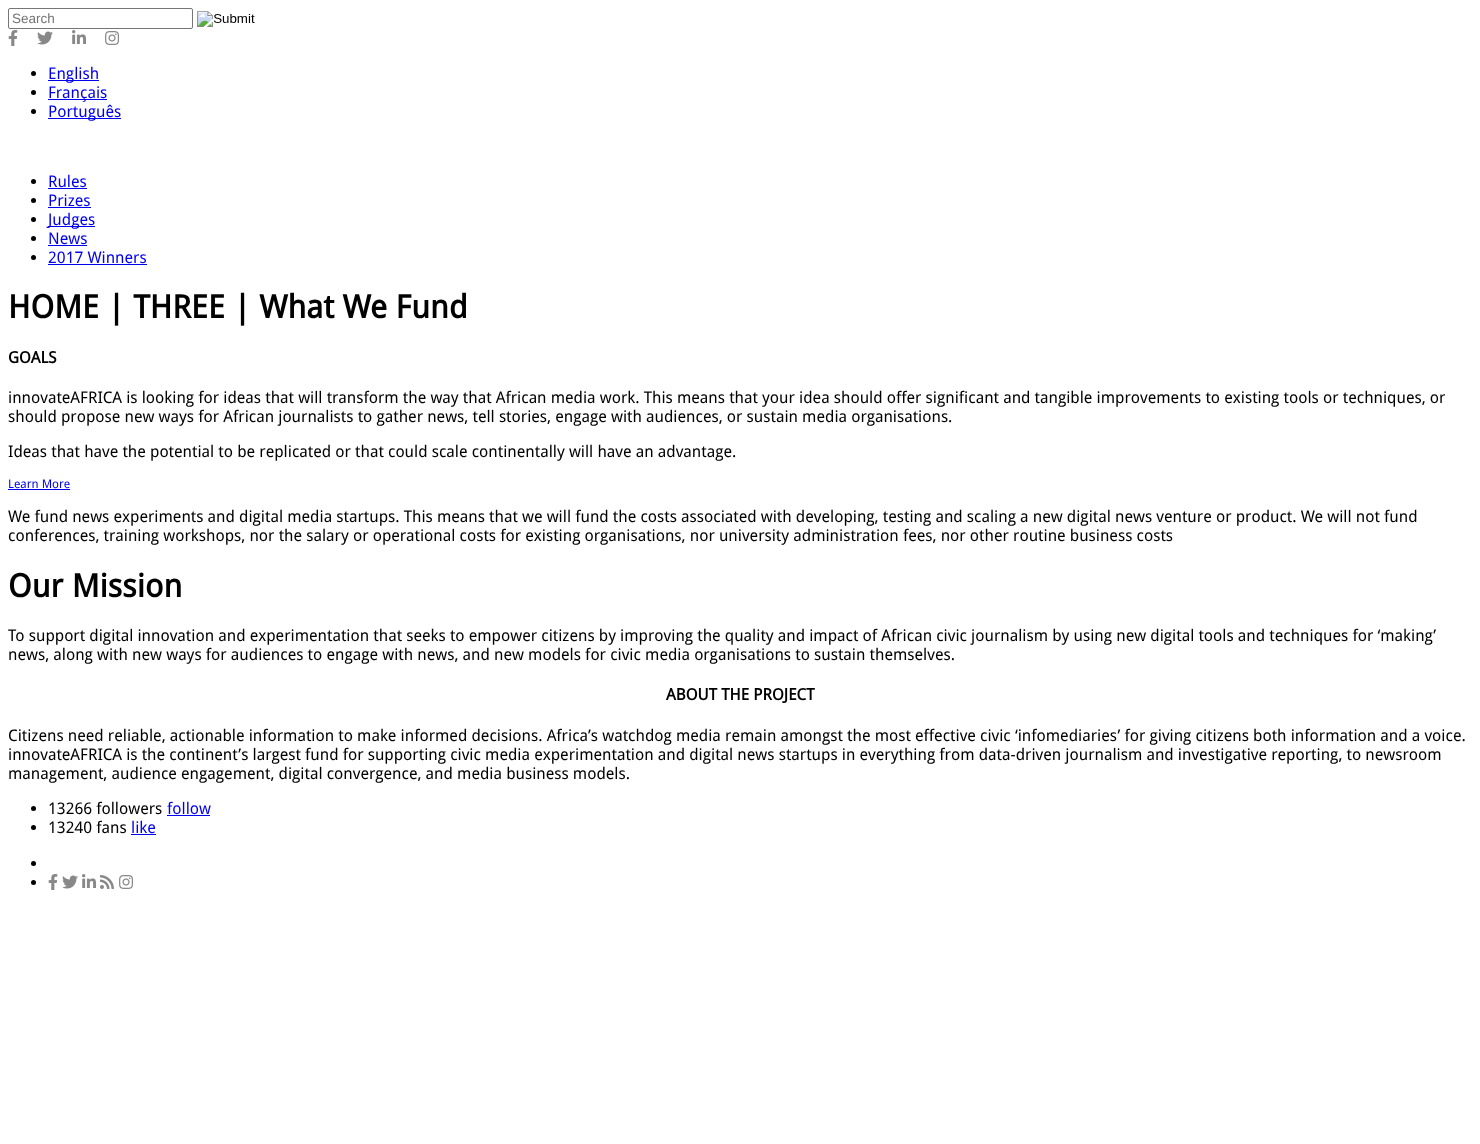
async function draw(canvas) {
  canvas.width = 1480
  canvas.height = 1144
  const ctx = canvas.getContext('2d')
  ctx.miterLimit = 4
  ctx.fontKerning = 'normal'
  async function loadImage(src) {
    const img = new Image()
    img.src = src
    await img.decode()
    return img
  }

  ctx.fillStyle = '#fff'
  ctx.fillRect(0, 0, 1480, 1144)
  ctx.beginPath()
  ctx.roundRect(8.5, 8.5, 184, 20, 1.5)
  ctx.strokeStyle = '#767676'
  ctx.stroke()
  ctx.font = '13.5px Liberation Sans'
  ctx.fillStyle = '#757575'
  ctx.fillText('Search', 12, 23)
  ctx.drawImage(await loadImage('image0.png'), 197, 11, 58, 16)
  ctx.drawImage(await loadImage('image1.png'), 8, 30, 10, 16)
  ctx.drawImage(await loadImage('image2.png'), 37, 31, 16, 14)
  ctx.drawImage(await loadImage('image3.png'), 72, 30, 14, 14)
  ctx.drawImage(await loadImage('image4.png'), 105, 31, 14, 14)
  ctx.fillStyle = '#000'
  ctx.beginPath()
  ctx.arc(33.5, 73.5, 2.5, 0, 2 * Math.PI)
  ctx.fill()
  ctx.fillStyle = '#00e'
  ctx.fillRect(48, 80, 51, 1)
  ctx.font = '16px Droid Sans'
  ctx.fillText('English', 48, 79)
  ctx.fillStyle = '#000'
  ctx.beginPath()
  ctx.arc(33.5, 92.5, 2.5, 0, 2 * Math.PI)
  ctx.fill()
  ctx.fillStyle = '#00e'
  ctx.fillRect(48, 99, 59, 1)
  ctx.fillText('Français', 48, 98)
  ctx.fillStyle = '#000'
  ctx.beginPath()
  ctx.arc(33.5, 111.5, 2.5, 0, 2 * Math.PI)
  ctx.fill()
  ctx.fillStyle = '#00e'
  ctx.fillRect(48, 118, 73, 1)
  ctx.fillText('Português', 48, 117)
  ctx.fillStyle = '#000'
  ctx.beginPath()
  ctx.arc(33.5, 181.5, 2.5, 0, 2 * Math.PI)
  ctx.fill()
  ctx.fillStyle = '#00e'
  ctx.fillText('Rules', 48, 187)
  ctx.fillRect(48, 188, 39, 1)
  ctx.fillStyle = '#000'
  ctx.beginPath()
  ctx.arc(33.5, 200.5, 2.5, 0, 2 * Math.PI)
  ctx.fill()
  ctx.fillStyle = '#00e'
  ctx.fillText('Prizes', 48, 206)
  ctx.fillRect(48, 207, 43, 1)
  ctx.fillStyle = '#000'
  ctx.beginPath()
  ctx.arc(33.5, 219.5, 2.5, 0, 2 * Math.PI)
  ctx.fill()
  ctx.fillStyle = '#00e'
  ctx.fillRect(48, 226, 47, 1)
  ctx.fillText('Judges', 48, 225)
  ctx.fillStyle = '#000'
  ctx.beginPath()
  ctx.arc(33.5, 238.5, 2.5, 0, 2 * Math.PI)
  ctx.fill()
  ctx.fillStyle = '#00e'
  ctx.fillText('News', 48, 244)
  ctx.fillRect(48, 245, 39, 1)
  ctx.fillStyle = '#000'
  ctx.beginPath()
  ctx.arc(33.5, 257.5, 2.5, 0, 2 * Math.PI)
  ctx.fill()
  ctx.fillStyle = '#00e'
  ctx.fillText('2017 Winners', 48, 263)
  ctx.fillRect(48, 264, 99, 1)
  ctx.font = 'bold 32px Droid Sans'
  ctx.fillStyle = '#000'
  ctx.fillText('HOME | THREE | What We Fund', 8, 318)
  ctx.font = 'bold 16px Droid Sans'
  ctx.fillText('GOALS', 8, 363)
  ctx.font = '16px Droid Sans'
  ctx.fillText('innovateAFRICA is looking for ideas that will transform the way that African media work. This means that your idea should offer significant and tangible improvements to existing tools or techniques, or', 8, 403)
  ctx.fillText('should propose new ways for African journalists to gather news, tell stories, engage with audiences, or sustain media organisations.', 8, 422)
  ctx.fillText('Ideas that have the potential to be replicated or that could scale continentally will have an advantage.', 8, 457)
  ctx.font = '12px Droid Sans'
  ctx.fillStyle = '#00e'
  ctx.fillText('Learn More', 8, 488)
  ctx.fillRect(8, 489, 62, 1)
  ctx.font = '16px Droid Sans'
  ctx.fillStyle = '#000'
  ctx.fillText('We fund news experiments and digital media startups. This means that we will fund the costs associated with developing, testing and scaling a new digital news venture or product. We will not fund', 8, 522)
  ctx.fillText('conferences, training workshops, nor the salary or operational costs for existing organisations, nor university administration fees, nor other routine business costs', 8, 541)
  ctx.font = 'bold 32px Droid Sans'
  ctx.fillText('Our Mission', 8, 597)
  ctx.font = '16px Droid Sans'
  ctx.fillText('To support digital innovation and experimentation that seeks to empower citizens by improving the quality and impact of African civic journalism by using new digital tools and techniques for ‘making’', 8, 641)
  ctx.fillText('news, along with new ways for audiences to engage with news, and new models for civic media organisations to sustain themselves.', 8, 660)
  ctx.font = 'bold 16px Droid Sans'
  ctx.fillText('ABOUT THE PROJECT', 666, 700)
  ctx.font = '16px Droid Sans'
  ctx.fillText('Citizens need reliable, actionable information to make informed decisions. Africa’s watchdog media remain amongst the most effective civic ‘infomediaries’ for giving citizens both information and a voice.', 8, 741)
  ctx.fillText('innovateAFRICA is the continent’s largest fund for supporting civic media experimentation and digital news startups in everything from data-driven journalism and investigative reporting, to newsroom', 8, 760)
  ctx.fillText('management, audience engagement, digital convergence, and media business models.', 8, 779)
  ctx.beginPath()
  ctx.arc(33.5, 808.5, 2.5, 0, 2 * Math.PI)
  ctx.fill()
  ctx.fillText('13266 followers', 48, 814)
  ctx.fillStyle = '#00e'
  ctx.fillText('follow', 167, 814)
  ctx.fillRect(167, 815, 43, 1)
  ctx.fillStyle = '#000'
  ctx.beginPath()
  ctx.arc(33.5, 827.5, 2.5, 0, 2 * Math.PI)
  ctx.fill()
  ctx.fillText('13240 fans', 48, 833)
  ctx.fillStyle = '#00e'
  ctx.fillText('like', 131, 833)
  ctx.fillRect(131, 834, 25, 1)
  ctx.fillStyle = '#000'
  ctx.beginPath()
  ctx.arc(33.5, 863.5, 2.5, 0, 2 * Math.PI)
  ctx.fill()
  ctx.beginPath()
  ctx.arc(33.5, 882.5, 2.5, 0, 2 * Math.PI)
  ctx.fill()
  ctx.drawImage(await loadImage('image1.png'), 48, 874, 10, 16)
  ctx.drawImage(await loadImage('image2.png'), 62, 875, 16, 14)
  ctx.drawImage(await loadImage('image3.png'), 82, 874, 14, 14)
  ctx.drawImage(await loadImage('image5.png'), 100, 875, 14, 14)
  ctx.drawImage(await loadImage('image4.png'), 119, 875, 14, 14)
}

draw(document.querySelector('canvas'))
